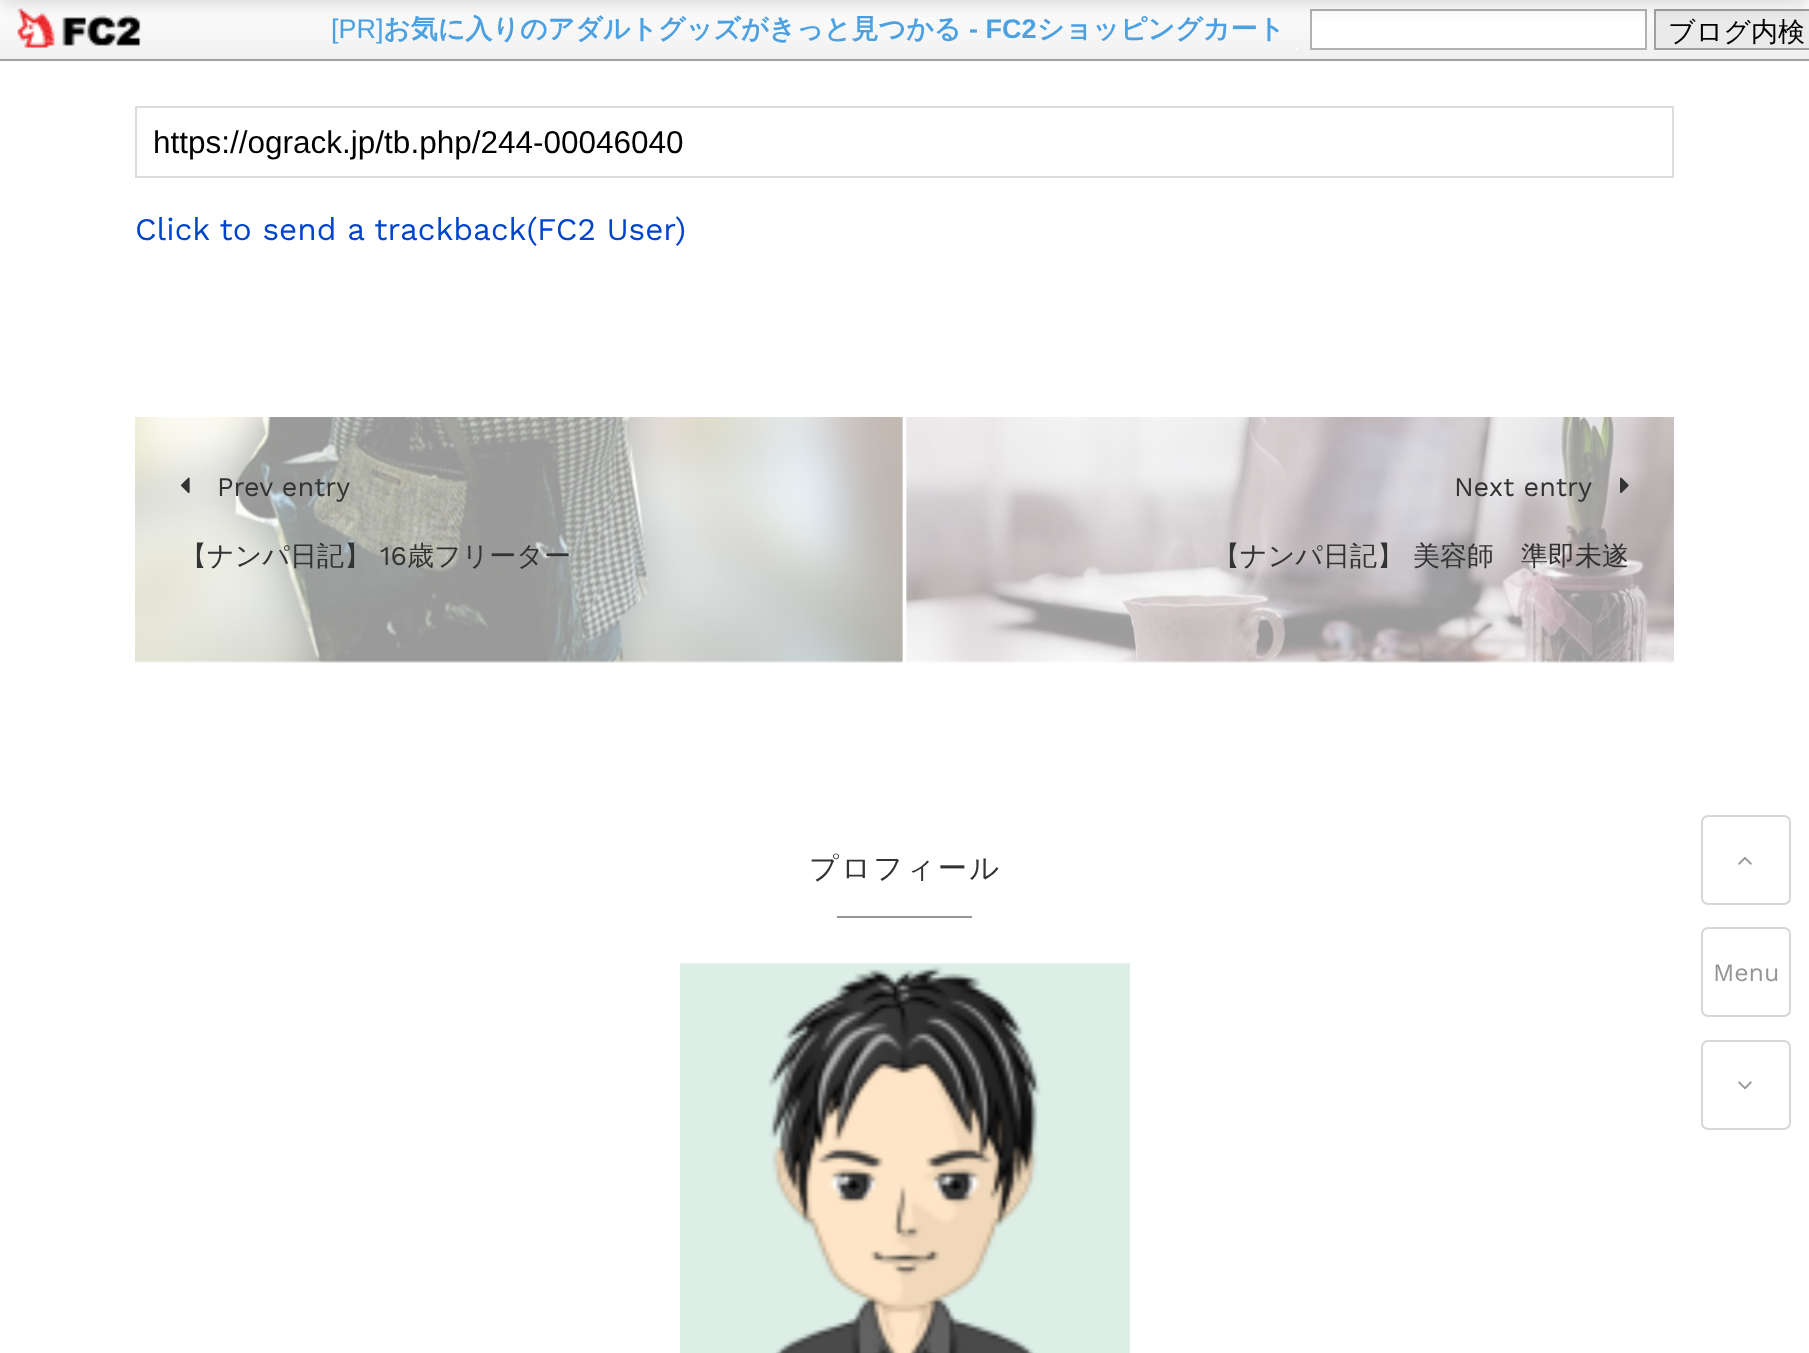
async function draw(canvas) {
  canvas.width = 1809
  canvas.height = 1353
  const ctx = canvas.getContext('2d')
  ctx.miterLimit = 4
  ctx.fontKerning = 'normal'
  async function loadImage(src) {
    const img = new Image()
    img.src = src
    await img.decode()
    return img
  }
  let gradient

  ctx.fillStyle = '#fff'
  ctx.fillRect(0, 0, 1809, 1353)
  gradient = ctx.createLinearGradient(0, 0, 0, 59)
  gradient.addColorStop(0, '#fff')
  gradient.addColorStop(1, '#f0f0f0')
  ctx.fillStyle = gradient
  ctx.fillRect(0, 10, 1809, 49)
  ctx.fillStyle = '#a1a1a1'
  ctx.fillRect(0, 59, 1809, 2)
  ctx.drawImage(await loadImage('image0.png'), 17, 8, 124, 40)
  ctx.font = '27px Liberation Sans'
  ctx.fillStyle = '#4ca1e3'
  ctx.fillText('[PR]', 331, 38)
  ctx.font = 'bold 27px WenQuanYi Zen Hei'
  ctx.fillText('お気に入りのアダルトグッズがきっと見つかる', 383, 38)
  ctx.font = 'bold 27px Liberation Sans'
  ctx.fillText('- FC2', 969, 38)
  ctx.font = 'bold 27px WenQuanYi Zen Hei'
  ctx.fillText('ショッピングカート', 1037, 38)
  ctx.drawImage(await loadImage('image1.png'), 1296, 47, 2, 3)
  ctx.fillStyle = '#fff'
  ctx.beginPath()
  ctx.rect(1311, 10, 335, 39)
  ctx.fill()
  ctx.strokeStyle = '#b2b2b2'
  ctx.lineWidth = 2
  ctx.stroke()
  ctx.fillStyle = '#eaeaea'
  ctx.beginPath()
  ctx.rect(1655, 10, 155, 39)
  ctx.fill()
  ctx.strokeStyle = '#a1a1a1'
  ctx.stroke()
  ctx.font = '500 27px WenQuanYi Zen Hei'
  ctx.fillStyle = '#000'
  ctx.fillText('ブログ内検', 1668, 41)
  ctx.fillStyle = '#00000014'
  ctx.filter = 'blur(11px)'
  ctx.beginPath()
  ctx.rect(0, -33, 1809, 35)
  ctx.fill()
  ctx.filter = 'none'
  ctx.fillStyle = '#0000000f'
  ctx.filter = 'blur(5.5px)'
  ctx.beginPath()
  ctx.rect(0, -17, 1809, 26)
  ctx.fill()
  ctx.filter = 'none'
  ctx.strokeStyle = '#dcdcdc'
  ctx.strokeRect(136, 107, 1537, 70)
  ctx.font = '31.5px Liberation Sans'
  ctx.fillStyle = '#000'
  ctx.fillText('https://ograck.jp/tb.php/244-00046040', 153, 153)
  ctx.font = '31.5px Work Sans'
  ctx.fillStyle = '#04c'
  ctx.fillText('Click to send a trackback(FC2 User)', 135, 240)
  ctx.drawImage(await loadImage('image2.png'), 135, 417, 768, 246)
  ctx.drawImage(await loadImage('image3.png'), 181, 477, 9, 17)
  ctx.font = '27px Work Sans'
  ctx.fillStyle = '#333'
  ctx.fillText('Prev entry', 217, 496)
  ctx.font = '500 27px WenQuanYi Zen Hei'
  ctx.fillText('【ナンパ日記】', 180, 565)
  ctx.font = '27px Work Sans'
  ctx.fillText('16', 380, 565)
  ctx.font = '500 27px WenQuanYi Zen Hei'
  ctx.fillText('歳フリーター', 407, 565)
  ctx.drawImage(await loadImage('image4.png'), 906, 417, 768, 246)
  ctx.font = '27px Work Sans'
  ctx.fillText('Next entry', 1454, 496)
  ctx.drawImage(await loadImage('image5.png'), 1620, 477, 9, 16)
  ctx.wordSpacing = '1px'
  ctx.font = '500 27px WenQuanYi Zen Hei'
  ctx.fillText('【ナンパ日記】 美容師　準即未遂', 1213, 565)
  ctx.letterSpacing = '2.25px'
  ctx.wordSpacing = '0px'
  ctx.font = '500 29.25px WenQuanYi Zen Hei'
  ctx.fillText('プロフィール', 809, 878)
  ctx.fillStyle = '#969696'
  ctx.fillRect(837, 916, 135, 2)
  ctx.drawImage(await loadImage('image6.png'), 680, 963, 450, 390)
  ctx.beginPath()
  ctx.roundRect(1702, 816, 88, 88, 6)
  ctx.strokeStyle = '#d9d5da'
  ctx.stroke()
  ctx.drawImage(await loadImage('image7.png'), 1738, 856, 14, 9)
  ctx.beginPath()
  ctx.roundRect(1702, 928, 88, 88, 6)
  ctx.stroke()
  ctx.letterSpacing = '0px'
  ctx.font = '25px Work Sans'
  ctx.fillText('Menu', 1713, 981)
  ctx.beginPath()
  ctx.roundRect(1702, 1041, 88, 88, 6)
  ctx.stroke()
  ctx.drawImage(await loadImage('image8.png'), 1738, 1081, 14, 9)
}

draw(document.querySelector('canvas'))
